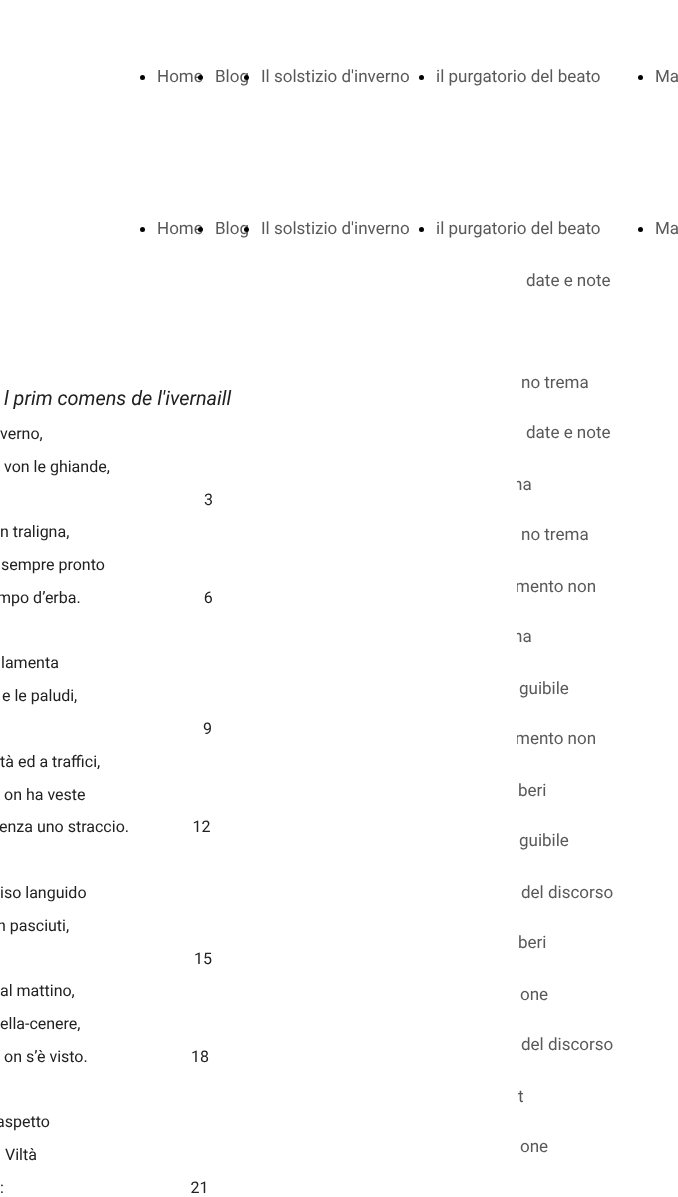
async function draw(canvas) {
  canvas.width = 678
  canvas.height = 1197
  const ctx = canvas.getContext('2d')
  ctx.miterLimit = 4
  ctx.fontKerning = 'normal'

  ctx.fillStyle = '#fff'
  ctx.fillRect(0, 0, 678, 1197)
  ctx.fillStyle = '#000'
  ctx.beginPath()
  ctx.arc(142.5, 77.5, 2.5, 0, 2 * Math.PI)
  ctx.fill()
  ctx.font = '17px Roboto'
  ctx.fillStyle = '#595959'
  ctx.fillText('Home', 157, 82)
  ctx.fillStyle = '#000'
  ctx.beginPath()
  ctx.arc(200.5, 77.5, 2.5, 0, 2 * Math.PI)
  ctx.fill()
  ctx.fillStyle = '#595959'
  ctx.fillText('Blog', 215, 82)
  ctx.fillStyle = '#000'
  ctx.beginPath()
  ctx.arc(246.5, 77.5, 2.5, 0, 2 * Math.PI)
  ctx.fill()
  ctx.fillStyle = '#595959'
  ctx.fillText('Il solstizio d\'inverno', 261, 82)
  ctx.fillStyle = '#000'
  ctx.beginPath()
  ctx.arc(421.5, 77.5, 2.5, 0, 2 * Math.PI)
  ctx.fill()
  ctx.fillStyle = '#595959'
  ctx.fillText('il purgatorio del beato', 436, 82)
  ctx.fillText('date e note', 526, 286)
  ctx.fillText('no trema', 521, 388)
  ctx.fillText('na', 513, 490)
  ctx.fillText('mento non', 515, 592)
  ctx.fillText('guibile', 519, 694)
  ctx.fillText('beri', 518, 796)
  ctx.fillText('del discorso', 521, 898)
  ctx.fillText('one', 520, 1000)
  ctx.fillText('t', 518, 1102)
  ctx.fillStyle = '#000'
  ctx.beginPath()
  ctx.arc(640.5, 77.5, 2.5, 0, 2 * Math.PI)
  ctx.fill()
  ctx.fillStyle = '#595959'
  ctx.fillText('Ma', 655, 82)
  ctx.font = 'italic 19.9px Roboto'
  ctx.fillStyle = '#212121'
  ctx.fillText('l prim comens de l\'ivernaill', 4, 405)
  ctx.fillStyle = '#000'
  ctx.beginPath()
  ctx.arc(142.5, 229.5, 2.5, 0, 2 * Math.PI)
  ctx.fill()
  ctx.font = '17px Roboto'
  ctx.fillStyle = '#595959'
  ctx.fillText('Home', 157, 234)
  ctx.fillStyle = '#000'
  ctx.beginPath()
  ctx.arc(200.5, 229.5, 2.5, 0, 2 * Math.PI)
  ctx.fill()
  ctx.fillStyle = '#595959'
  ctx.fillText('Blog', 215, 234)
  ctx.fillStyle = '#000'
  ctx.beginPath()
  ctx.arc(246.5, 229.5, 2.5, 0, 2 * Math.PI)
  ctx.fill()
  ctx.fillStyle = '#595959'
  ctx.fillText('Il solstizio d\'inverno', 261, 234)
  ctx.fillStyle = '#000'
  ctx.beginPath()
  ctx.arc(421.5, 229.5, 2.5, 0, 2 * Math.PI)
  ctx.fill()
  ctx.fillStyle = '#595959'
  ctx.fillText('il purgatorio del beato', 436, 234)
  ctx.fillText('date e note', 526, 438)
  ctx.fillText('no trema', 521, 540)
  ctx.fillText('na', 513, 642)
  ctx.fillText('mento non', 515, 744)
  ctx.fillText('guibile', 519, 846)
  ctx.fillText('beri', 518, 948)
  ctx.fillText('del discorso', 521, 1050)
  ctx.fillText('one', 520, 1152)
  ctx.fillStyle = '#000'
  ctx.beginPath()
  ctx.arc(640.5, 229.5, 2.5, 0, 2 * Math.PI)
  ctx.fill()
  ctx.fillStyle = '#595959'
  ctx.fillText('Ma', 655, 234)
  ctx.font = '16px Roboto'
  ctx.fillStyle = '#212121'
  ctx.fillText('verno,', 0, 439)
  ctx.fillText('von le ghiande,', 4, 472)
  ctx.fillText('3', 204, 505)
  ctx.fillText('n traligna,', 0, 537)
  ctx.fillText('sempre pronto', 1, 570)
  ctx.fillText('mpo d’erba.                               6', -3, 603)
  ctx.fillText('lamenta', 1, 668)
  ctx.fillText('e le paludi,', 2, 701)
  ctx.fillText('9', 203, 734)
  ctx.fillText('tà ed a traffici,', 0, 767)
  ctx.fillText('on ha veste', 4, 800)
  ctx.fillText('enza uno straccio.                12', -1, 832)
  ctx.fillText('iso languido', 0, 898)
  ctx.fillText('n pasciuti,', -3, 931)
  ctx.fillText('15', 194, 964)
  ctx.fillText('al mattino,', 0, 996)
  ctx.fillText('ella-cenere,', 0, 1029)
  ctx.fillText('on s’è visto.                          18', 4, 1062)
  ctx.fillText('aspetto', -4, 1127)
  ctx.fillText('Viltà', 5, 1160)
  ctx.fillText(':                                               21', 0, 1193)
  ctx.fillStyle = '#fff'
  ctx.fillRect(514, 481, 3, 263)
}

draw(document.querySelector('canvas'))
